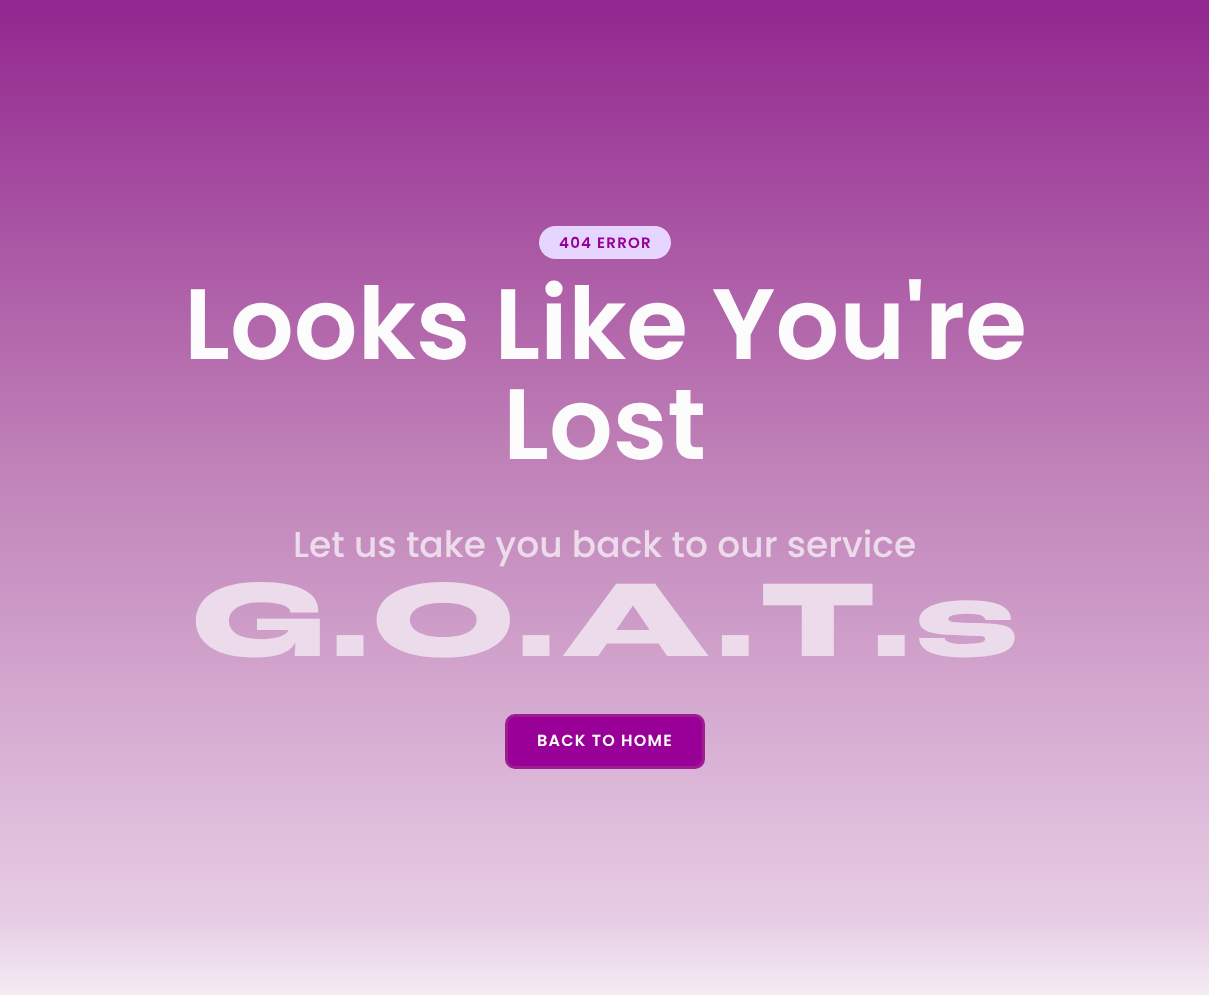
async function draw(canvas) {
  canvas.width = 1209
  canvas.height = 995
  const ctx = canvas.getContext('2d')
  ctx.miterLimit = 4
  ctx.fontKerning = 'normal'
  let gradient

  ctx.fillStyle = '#fff'
  ctx.fillRect(0, 0, 1209, 995)
  gradient = ctx.createLinearGradient(605, 0, 605, 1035)
  gradient.addColorStop(0, '#92278f')
  gradient.addColorStop(0.44, '#bf80b7')
  gradient.addColorStop(0.89, '#e7cde5')
  gradient.addColorStop(1, '#fcfcfc')
  ctx.fillStyle = gradient
  ctx.fillRect(0, 0, 1209, 995)
  ctx.fillStyle = '#e6d5ff'
  ctx.beginPath()
  ctx.roundRect(539, 226, 132, 33, 16.5)
  ctx.fill()
  ctx.letterSpacing = '1.25px'
  ctx.font = '600 15px Poppins'
  ctx.fillStyle = '#980098'
  ctx.fillText('404 ERROR', 559, 248)
  ctx.letterSpacing = '0px'
  ctx.font = '600 100px Poppins'
  ctx.fillStyle = '#fcfcfc'
  ctx.fillText('Looks Like You\'re', 184, 359)
  ctx.fillText('Lost', 503, 459)
  ctx.font = '500 36px Poppins'
  ctx.fillStyle = '#ecdbea'
  ctx.fillText('Let us take you back to our service', 293, 557)
  ctx.font = '800 110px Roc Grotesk'
  ctx.fillText('G.O.A.T.s', 191, 656)
  ctx.fillStyle = '#980098'
  ctx.beginPath()
  ctx.roundRect(506.5, 715.5, 197, 52, 8.5)
  ctx.fill()
  ctx.strokeStyle = '#9b1f91'
  ctx.lineWidth = 3
  ctx.stroke()
  ctx.letterSpacing = '1.25px'
  ctx.font = '600 16px Poppins'
  ctx.fillStyle = '#fcfcfc'
  ctx.fillText('BACK TO HOME', 537, 746)
}

draw(document.querySelector('canvas'))
